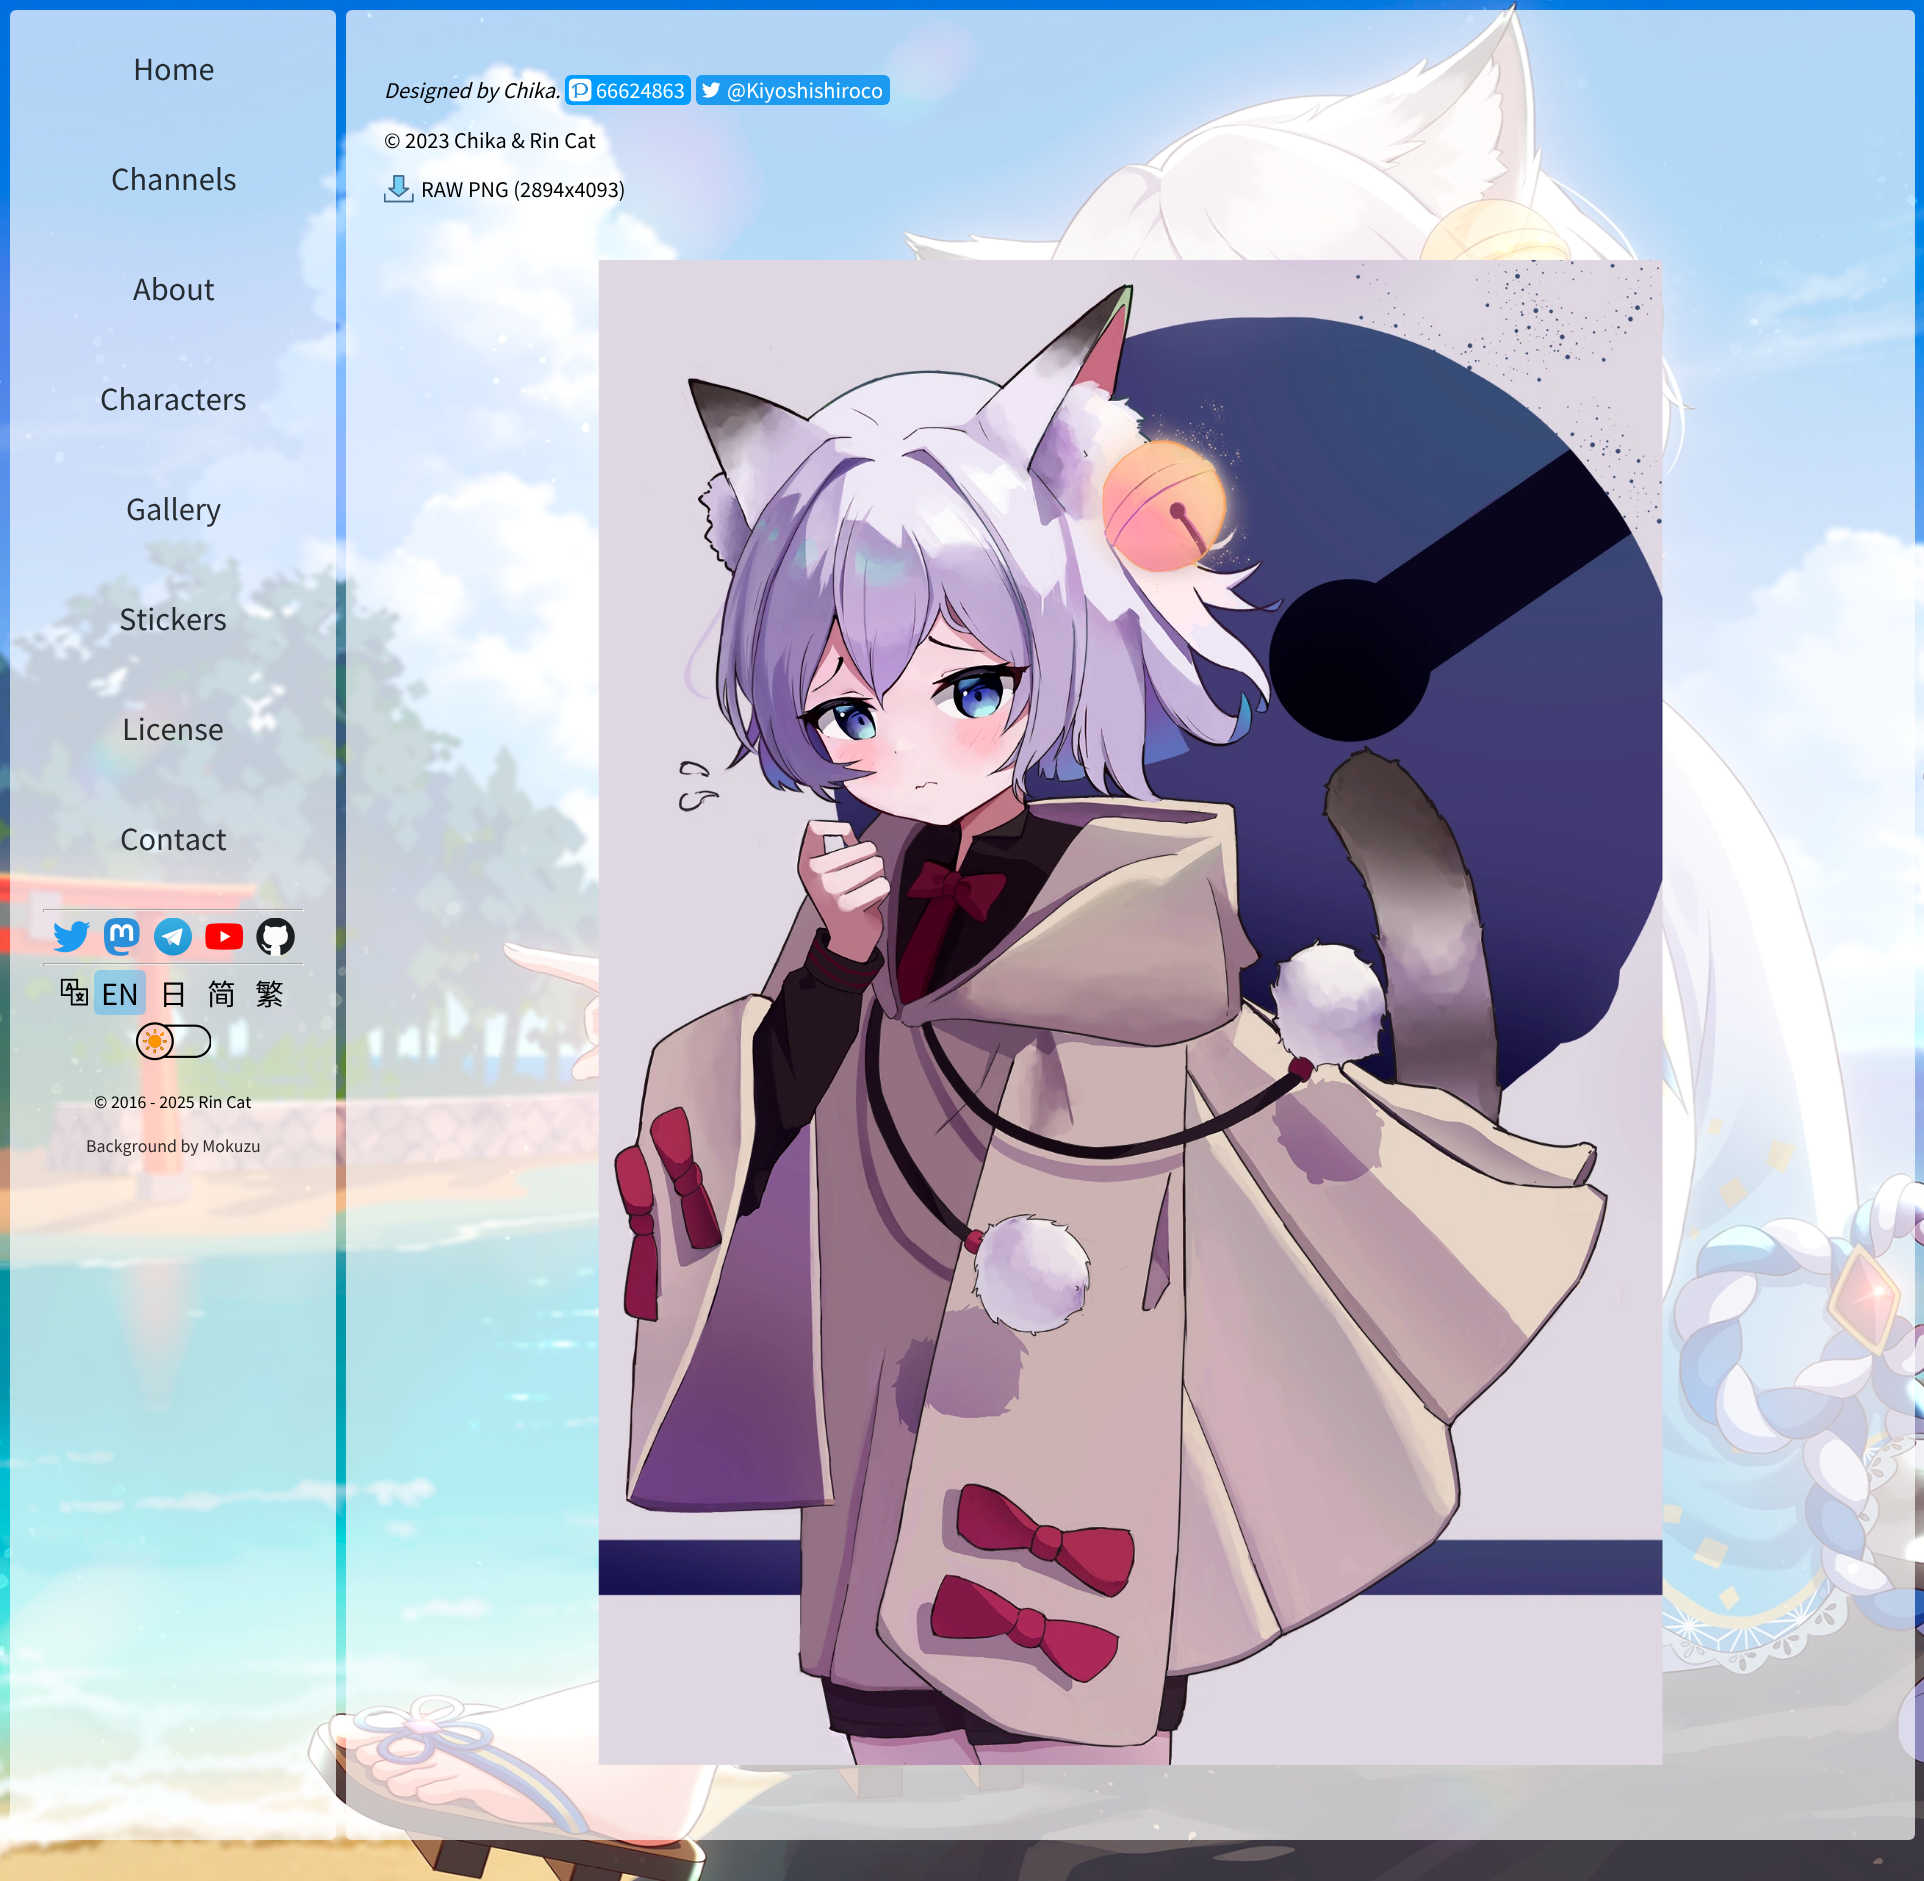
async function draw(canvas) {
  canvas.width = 1924
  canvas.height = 1881
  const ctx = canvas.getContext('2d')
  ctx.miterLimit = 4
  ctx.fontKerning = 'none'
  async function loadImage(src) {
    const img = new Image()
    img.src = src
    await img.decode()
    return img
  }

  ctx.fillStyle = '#fff'
  ctx.fillRect(0, 0, 1924, 1881)
  ctx.drawImage(await loadImage('image0.png'), 0, 0, 1924, 1881)
  ctx.fillStyle = '#ffffffb3'
  ctx.beginPath()
  ctx.roundRect(10, 10, 326, 1830, 6)
  ctx.fill()
  ctx.font = '29px Noto Sans CJK SC'
  ctx.fillStyle = '#242b31'
  ctx.fillText('Home', 133, 80)
  ctx.fillText('Channels', 111, 190)
  ctx.fillText('About', 133, 300)
  ctx.fillText('Characters', 100, 410)
  ctx.fillStyle = '#2a2d32'
  ctx.fillText('Gallery', 126, 520)
  ctx.fillStyle = '#242b31'
  ctx.fillText('Stickers', 119, 630)
  ctx.fillStyle = '#292a2b'
  ctx.fillText('License', 122, 740)
  ctx.fillStyle = '#2a2d32'
  ctx.fillText('Contact', 120, 850)
  ctx.fillStyle = '#9f9f9fe6'
  ctx.fillRect(43, 909, 261, 1)
  ctx.fillStyle = '#ebebec'
  ctx.fillRect(303, 909, 1, 3)
  ctx.fillStyle = '#eeeeeee6'
  ctx.fillRect(43, 910, 261, 1)
  ctx.fillStyle = '#a7a6a6'
  ctx.fillRect(43, 909, 1, 3)
  ctx.drawImage(await loadImage('image1.png'), 53, 921, 37, 32)
  ctx.drawImage(await loadImage('image2.png'), 103, 918, 37, 38)
  ctx.drawImage(await loadImage('image3.png'), 154, 918, 38, 38)
  ctx.drawImage(await loadImage('image4.png'), 205, 923, 39, 27)
  ctx.drawImage(await loadImage('image5.png'), 256, 918, 39, 38)
  ctx.fillStyle = '#9f9f9fe6'
  ctx.fillRect(43, 963, 261, 1)
  ctx.fillStyle = '#ebebec'
  ctx.fillRect(303, 963, 1, 3)
  ctx.fillStyle = '#eeeeeee6'
  ctx.fillRect(43, 964, 261, 1)
  ctx.fillStyle = '#a4a5a5'
  ctx.fillRect(43, 963, 1, 3)
  ctx.drawImage(await loadImage('image6.png'), 60, 978, 28, 28)
  ctx.fillStyle = '#50b6f680'
  ctx.beginPath()
  ctx.roundRect(94, 970, 52, 45, 6)
  ctx.fill()
  ctx.fillStyle = '#000'
  ctx.fillText('EN', 101, 1005)
  ctx.font = '29px Noto Sans CJK JP'
  ctx.fillText('日', 159, 1005)
  ctx.font = '29px Noto Sans CJK SC'
  ctx.fillText('简', 207, 1005)
  ctx.font = '29px Noto Sans CJK TC'
  ctx.fillText('繁', 255, 1005)
  ctx.drawImage(await loadImage('image7.png'), 135, 1022, 76, 39)
  ctx.font = '16px Noto Sans CJK SC'
  ctx.fillText('© 2016 - 2025 Rin Cat', 94, 1108)
  ctx.fillStyle = '#312d2c'
  ctx.fillText('Background by Mokuzu', 86, 1152)
  ctx.fillStyle = '#ffffffb3'
  ctx.beginPath()
  ctx.roundRect(346, 10, 1569, 1830, 6)
  ctx.fill()
  ctx.font = 'italic 20px Noto Sans CJK SC'
  ctx.fillStyle = '#000'
  ctx.fillText('Designed by Chika.', 384, 98)
  ctx.fillStyle = '#009cff'
  ctx.beginPath()
  ctx.roundRect(565, 75, 126, 30, 6)
  ctx.fill()
  ctx.drawImage(await loadImage('image8.png'), 568, 78, 24, 24)
  ctx.font = '20px Noto Sans CJK SC'
  ctx.fillStyle = '#fff'
  ctx.fillText('66624863', 596, 98)
  ctx.fillStyle = '#1d9bf0'
  ctx.beginPath()
  ctx.roundRect(696, 75, 194, 30, 6)
  ctx.fill()
  ctx.drawImage(await loadImage('image9.png'), 696, 75, 25, 30)
  ctx.fillStyle = '#fff'
  ctx.fillText('@Kiyoshishiroco', 727, 98)
  ctx.fillStyle = '#000'
  ctx.fillText('© 2023 Chika & Rin Cat', 384, 148)
  ctx.drawImage(await loadImage('image10.png'), 384, 175, 30, 28)
  ctx.fillText('RAW PNG (2894x4093)', 421, 197)
  ctx.drawImage(await loadImage('image11.png'), 598, 260, 1065, 1505)
}

draw(document.querySelector('canvas'))
